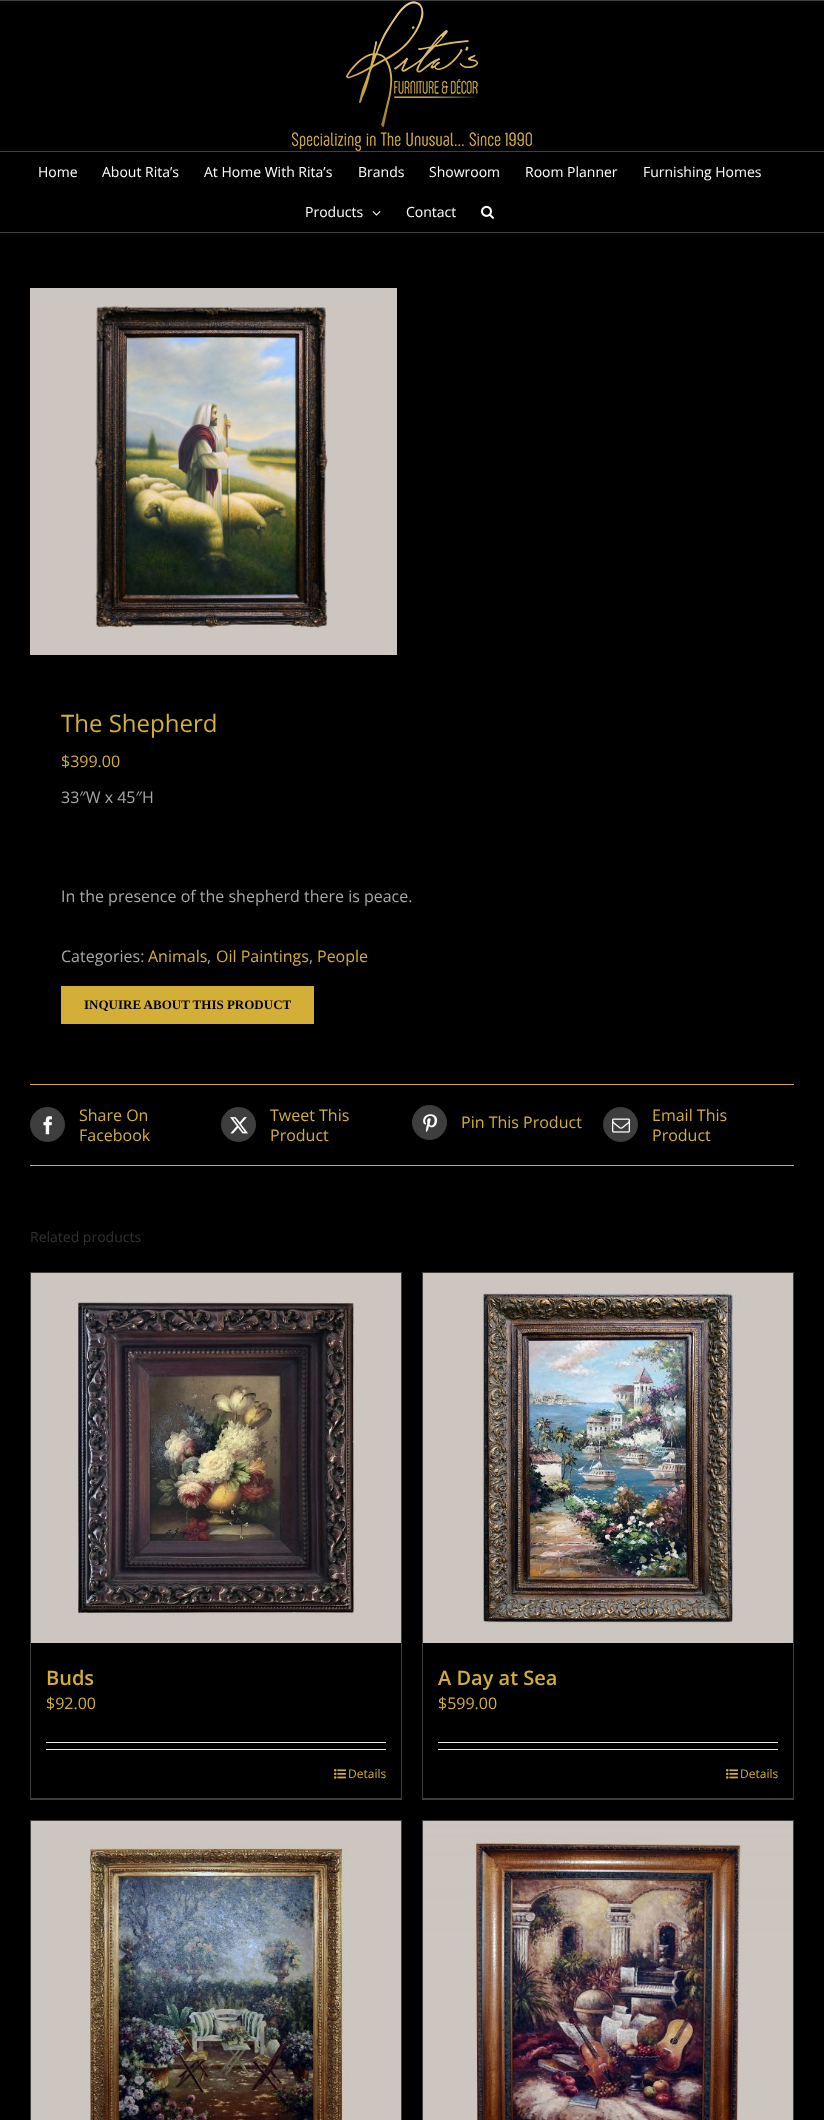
async function draw(canvas) {
  canvas.width = 824
  canvas.height = 2120
  const ctx = canvas.getContext('2d')
  ctx.miterLimit = 4
  ctx.fontKerning = 'normal'
  async function loadImage(src) {
    const img = new Image()
    img.src = src
    await img.decode()
    return img
  }

  ctx.fillStyle = '#000'
  ctx.fillRect(0, 0, 824, 2120)
  ctx.fillStyle = '#3e3e3e'
  ctx.fillRect(0, 0, 824, 1)
  ctx.fillRect(0, 151, 824, 1)
  ctx.drawImage(await loadImage('image0.png'), 292, 1, 240, 150)
  ctx.fillRect(0, 232, 824, 1)
  ctx.font = '14px Open Sans'
  ctx.fillStyle = '#fff'
  ctx.fillText('Home', 38, 177)
  ctx.fillText('About Rita’s', 102, 177)
  ctx.fillText('At Home With Rita’s', 204, 177)
  ctx.fillText('Brands', 358, 177)
  ctx.fillText('Showroom', 429, 177)
  ctx.fillText('Room Planner', 525, 177)
  ctx.fillText('Furnishing Homes', 643, 177)
  ctx.fillText('Products', 305, 217)
  ctx.drawImage(await loadImage('image1.png'), 372, 211, 9, 5)
  ctx.fillText('Contact', 406, 217)
  ctx.drawImage(await loadImage('image2.png'), 481, 205, 13, 14)
  ctx.drawImage(await loadImage('image3.png'), 30, 288, 367, 367)
  ctx.font = '24px Open Sans'
  ctx.fillStyle = '#d4af37'
  ctx.fillText('The Shepherd', 61, 732)
  ctx.font = '16px Open Sans'
  ctx.fillText('$399.00', 61, 767)
  ctx.fillStyle = '#aaa9a9'
  ctx.fillText('33″W x 45″H', 61, 803)
  ctx.fillText('In the presence of the shepherd there is peace.', 61, 902)
  ctx.fillText('Categories:', 61, 962)
  ctx.fillStyle = '#d4af37'
  ctx.fillText('Animals', 148, 962)
  ctx.fillStyle = '#aaa9a9'
  ctx.fillText(',', 207, 962)
  ctx.fillStyle = '#d4af37'
  ctx.fillText('Oil Paintings', 216, 962)
  ctx.fillStyle = '#aaa9a9'
  ctx.fillText(',', 309, 962)
  ctx.fillStyle = '#d4af37'
  ctx.fillText('People', 317, 962)
  ctx.fillRect(61, 986, 253, 38)
  ctx.font = 'bold 13px Liberation Serif'
  ctx.fillStyle = '#000'
  ctx.fillText('INQUIRE ABOUT THIS PRODUCT', 84, 1009)
  ctx.fillStyle = '#d4af37'
  ctx.fillRect(30, 1084, 764, 1)
  ctx.fillRect(30, 1165, 764, 1)
  ctx.fillStyle = '#3e3e3e'
  ctx.beginPath()
  ctx.arc(47.5, 1124.5, 17, 0, 2 * Math.PI)
  ctx.fill()
  ctx.strokeStyle = '#3e3e3e'
  ctx.stroke()
  ctx.drawImage(await loadImage('image4.png'), 43, 1116, 9, 19)
  ctx.font = '16px Open Sans'
  ctx.fillStyle = '#d4af37'
  ctx.fillText('Share On', 79, 1121)
  ctx.fillText('Facebook', 79, 1141)
  ctx.fillStyle = '#3e3e3e'
  ctx.beginPath()
  ctx.arc(238.5, 1124.5, 17, 0, 2 * Math.PI)
  ctx.fill()
  ctx.stroke()
  ctx.drawImage(await loadImage('image5.png'), 230, 1117, 18, 17)
  ctx.fillStyle = '#d4af37'
  ctx.fillText('Tweet This', 270, 1121)
  ctx.fillText('Product', 270, 1141)
  ctx.fillStyle = '#3e3e3e'
  ctx.beginPath()
  ctx.arc(429.5, 1122.5, 17, 0, 2 * Math.PI)
  ctx.fill()
  ctx.stroke()
  ctx.drawImage(await loadImage('image6.png'), 423, 1114, 15, 19)
  ctx.fillStyle = '#d4af37'
  ctx.fillText('Pin This Product', 461, 1128)
  ctx.fillStyle = '#3e3e3e'
  ctx.beginPath()
  ctx.arc(620.5, 1124.5, 17, 0, 2 * Math.PI)
  ctx.fill()
  ctx.stroke()
  ctx.drawImage(await loadImage('image7.png'), 612, 1118, 18, 15)
  ctx.fillStyle = '#d4af37'
  ctx.fillText('Email This', 652, 1121)
  ctx.fillText('Product', 652, 1141)
  ctx.font = '14px Open Sans'
  ctx.fillStyle = '#333'
  ctx.fillText('Related products', 30, 1242)
  ctx.fillStyle = '#3e3e3e'
  ctx.fillRect(30, 1272, 372, 1)
  ctx.fillRect(401, 1272, 1, 528)
  ctx.fillRect(30, 1798, 372, 2)
  ctx.fillRect(30, 1272, 1, 528)
  ctx.drawImage(await loadImage('image8.png'), 31, 1273, 370, 370)
  ctx.font = '600 20px Open Sans'
  ctx.fillStyle = '#d4af37'
  ctx.fillText('Buds', 46, 1685)
  ctx.font = '16px Open Sans'
  ctx.fillText('$92.00', 46, 1709)
  ctx.fillStyle = '#ebeaea'
  ctx.fillRect(46, 1742, 340, 1)
  ctx.fillRect(46, 1749, 340, 1)
  ctx.drawImage(await loadImage('image9.png'), 334, 1769, 12, 10)
  ctx.font = '12px Open Sans'
  ctx.fillStyle = '#d4af37'
  ctx.fillText('Details', 348, 1778)
  ctx.fillStyle = '#3e3e3e'
  ctx.fillRect(422, 1272, 372, 1)
  ctx.fillRect(793, 1272, 1, 528)
  ctx.fillRect(422, 1798, 372, 2)
  ctx.fillRect(422, 1272, 1, 528)
  ctx.drawImage(await loadImage('image10.png'), 423, 1273, 370, 370)
  ctx.font = '600 20px Open Sans'
  ctx.fillStyle = '#d4af37'
  ctx.fillText('A Day at Sea', 438, 1685)
  ctx.font = '16px Open Sans'
  ctx.fillText('$599.00', 438, 1709)
  ctx.fillStyle = '#ebeaea'
  ctx.fillRect(438, 1742, 340, 1)
  ctx.fillRect(438, 1749, 340, 1)
  ctx.drawImage(await loadImage('image9.png'), 726, 1769, 12, 10)
  ctx.font = '12px Open Sans'
  ctx.fillStyle = '#d4af37'
  ctx.fillText('Details', 740, 1778)
  ctx.fillStyle = '#3e3e3e'
  ctx.fillRect(30, 1820, 372, 1)
  ctx.fillRect(401, 1820, 1, 300)
  ctx.fillRect(30, 1820, 1, 300)
  ctx.drawImage(await loadImage('image11.png'), 31, 1821, 370, 299)
  ctx.fillRect(422, 1820, 372, 1)
  ctx.fillRect(793, 1820, 1, 300)
  ctx.fillRect(422, 1820, 1, 300)
  ctx.drawImage(await loadImage('image12.png'), 423, 1821, 370, 299)
}

draw(document.querySelector('canvas'))
